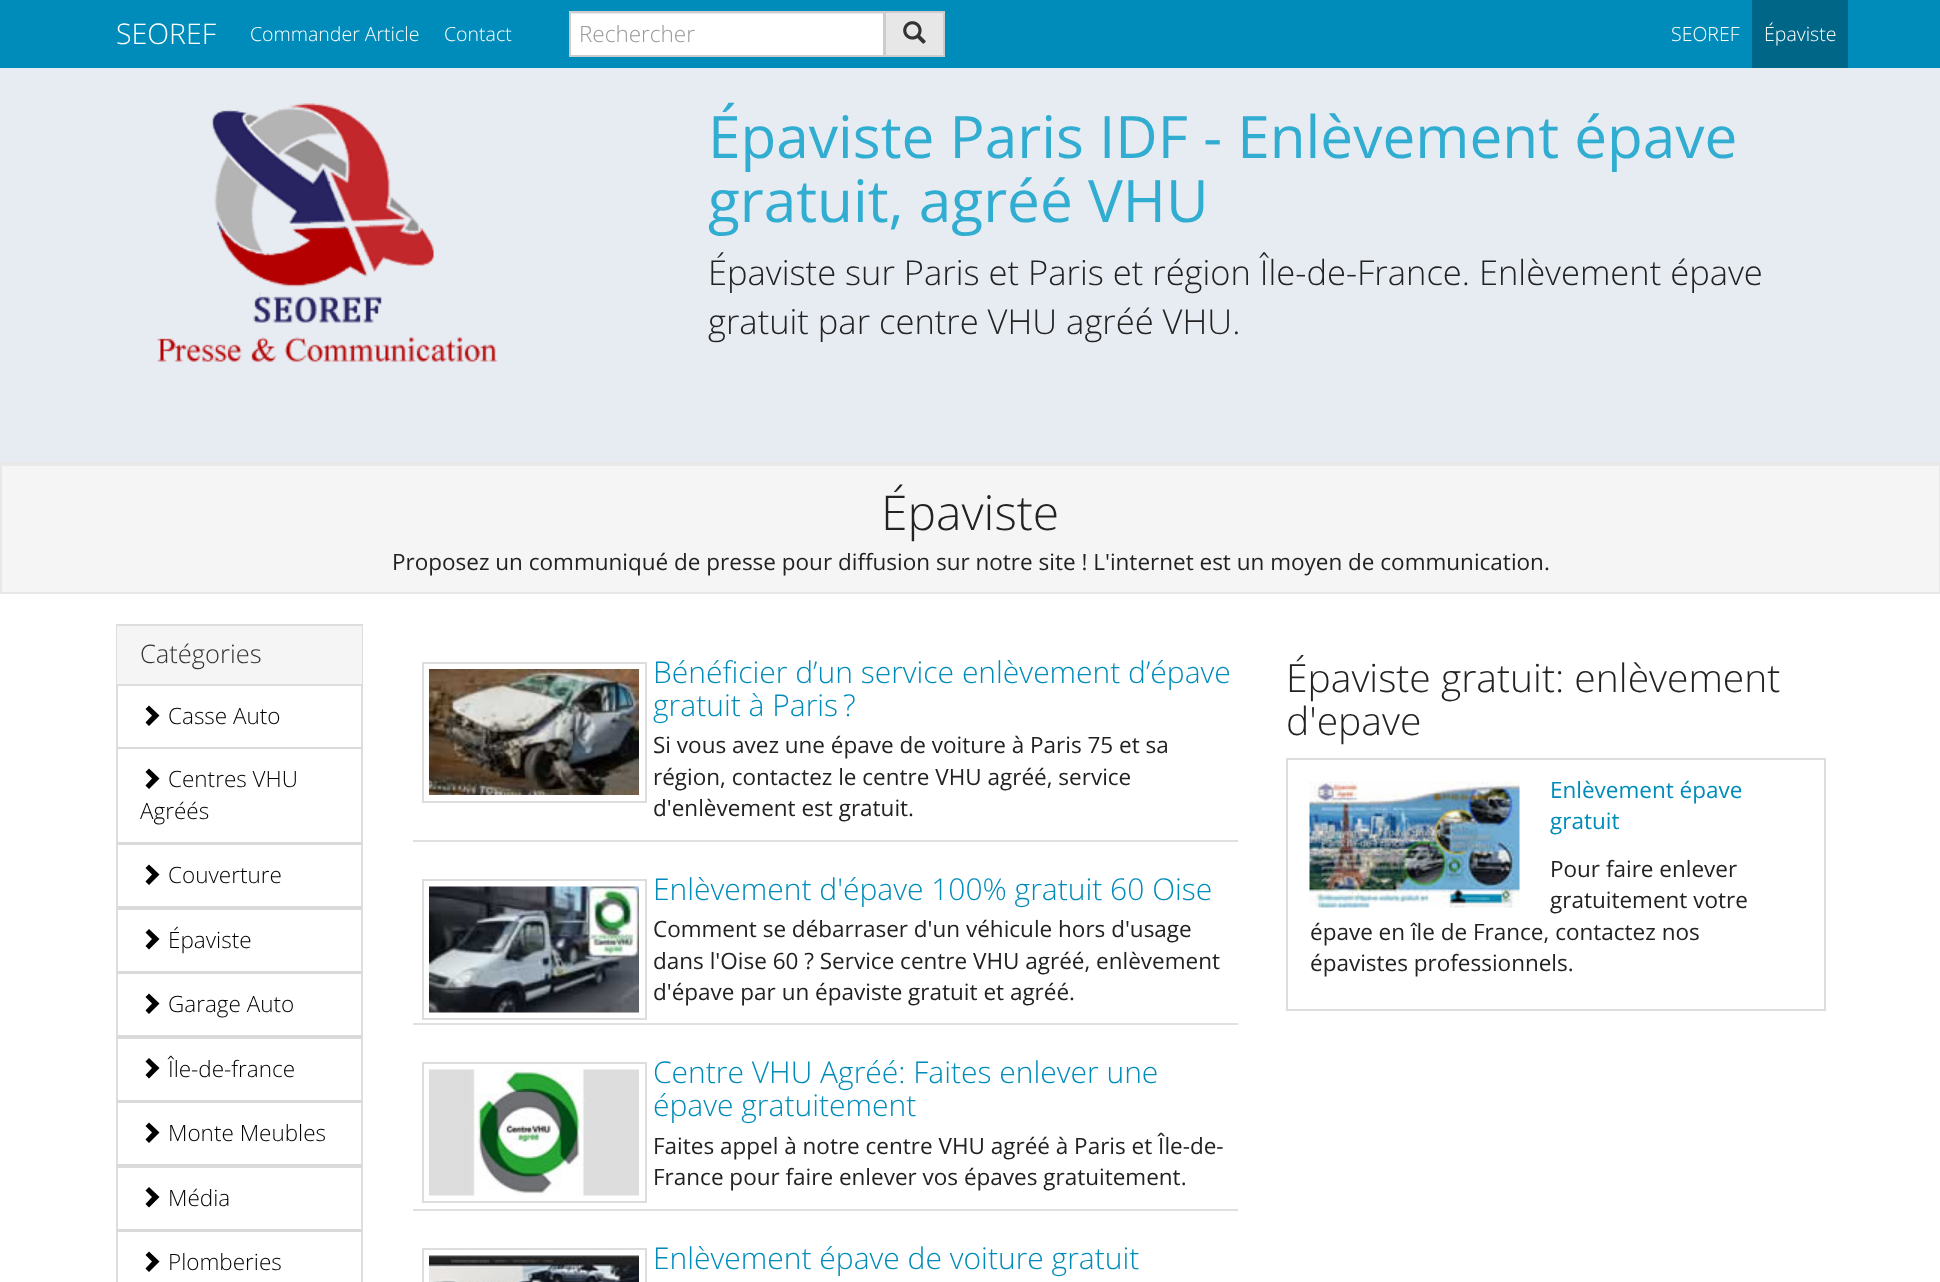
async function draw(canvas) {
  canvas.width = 1940
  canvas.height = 1282
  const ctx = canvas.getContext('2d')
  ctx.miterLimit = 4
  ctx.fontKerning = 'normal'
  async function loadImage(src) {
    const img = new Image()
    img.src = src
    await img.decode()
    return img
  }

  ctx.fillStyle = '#fff'
  ctx.fillRect(0, 0, 1940, 1282)
  ctx.fillStyle = '#008cba'
  ctx.fillRect(0, 0, 1940, 68)
  ctx.font = '300 28.5px Open Sans'
  ctx.fillStyle = '#fff'
  ctx.fillText('SEOREF', 116, 44)
  ctx.font = '300 19.5px Open Sans'
  ctx.fillText('Commander Article', 250, 41)
  ctx.fillText('Contact', 444, 41)
  ctx.fillRect(571, 14, 312, 41)
  ctx.fillStyle = '#ececec'
  ctx.fillRect(570, 13, 314, 1)
  ctx.strokeStyle = '#ccc'
  ctx.lineWidth = 2
  ctx.strokeRect(570, 12, 314, 44)
  ctx.font = '300 22.5px Open Sans'
  ctx.fillStyle = '#999'
  ctx.fillText('Rechercher', 579, 42)
  ctx.fillStyle = '#e7e7e7'
  ctx.beginPath()
  ctx.rect(885, 12, 59, 44)
  ctx.fill()
  ctx.stroke()
  ctx.drawImage(await loadImage('image0.png'), 903, 21, 23, 23)
  ctx.font = '300 19.5px Open Sans'
  ctx.fillStyle = '#fff'
  ctx.fillText('SEOREF', 1671, 41)
  ctx.fillStyle = '#006687'
  ctx.fillRect(1752, 0, 96, 68)
  ctx.fillStyle = '#fff'
  ctx.fillText('Épaviste', 1764, 41)
  ctx.fillStyle = '#e7ebf2'
  ctx.fillRect(0, 68, 1940, 394)
  ctx.drawImage(await loadImage('image1.png'), 157, 103, 341, 259)
  ctx.font = '58.5px Open Sans'
  ctx.fillStyle = '#30add1'
  ctx.fillText('Épaviste Paris IDF - Enlèvement épave', 708, 158)
  ctx.fillText('gratuit, agréé VHU', 708, 222)
  ctx.font = '300 34.5px Open Sans'
  ctx.fillStyle = '#222'
  ctx.fillText('Épaviste sur Paris et Paris et région Île-de-France. Enlèvement épave', 708, 285)
  ctx.fillText('gratuit par centre VHU agréé VHU.', 708, 334)
  ctx.fillStyle = '#f5f5f5'
  ctx.fillRect(2, 466, 1937, 126)
  ctx.fillStyle = '#e9e9e9'
  ctx.fillRect(2, 464, 1938, 2)
  ctx.strokeStyle = '#e8e8e8'
  ctx.strokeRect(1, 463, 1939, 130)
  ctx.font = '300 48px Open Sans'
  ctx.fillStyle = '#222'
  ctx.fillText('Épaviste', 881, 530)
  ctx.font = '22.5px Open Sans'
  ctx.fillText('Proposez un communiqué de presse pour diffusion sur notre site ! L\'internet est un moyen de communication.', 392, 570)
  ctx.strokeStyle = '#ddd'
  ctx.strokeRect(117, 625, 245, 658)
  ctx.fillStyle = '#f5f5f5'
  ctx.fillRect(117, 626, 245, 58)
  ctx.fillStyle = '#ddd'
  ctx.fillRect(117, 684, 245, 2)
  ctx.font = '300 25.5px Open Sans'
  ctx.fillStyle = '#333'
  ctx.fillText('Catégories', 140, 663)
  ctx.fillStyle = '#000'
  ctx.beginPath()
  ctx.moveTo(159.5, 715.5)
  ctx.lineTo(149, 726)
  ctx.lineTo(145.5, 722.5)
  ctx.lineTo(152, 715.5)
  ctx.lineTo(145.5, 709)
  ctx.lineTo(149, 705.5)
  ctx.closePath()
  ctx.fill()
  ctx.font = '300 22.5px Open Sans'
  ctx.fillText('Casse Auto', 168, 724)
  ctx.fillStyle = '#dadada'
  ctx.fillRect(117, 747, 245, 2)
  ctx.fillRect(117, 842, 245, 3)
  ctx.fillStyle = '#000'
  ctx.beginPath()
  ctx.moveTo(159.5, 778.5)
  ctx.lineTo(149, 789)
  ctx.lineTo(145.5, 785.5)
  ctx.lineTo(152, 778.5)
  ctx.lineTo(145.5, 772)
  ctx.lineTo(149, 768.5)
  ctx.closePath()
  ctx.fill()
  ctx.fillText('Centres VHU', 168, 787)
  ctx.fillText('Agréés', 140, 819)
  ctx.fillStyle = '#dadada'
  ctx.fillRect(117, 906, 245, 4)
  ctx.fillStyle = '#000'
  ctx.beginPath()
  ctx.moveTo(159.5, 874.5)
  ctx.lineTo(149, 885)
  ctx.lineTo(145.5, 881.5)
  ctx.lineTo(152, 874.5)
  ctx.lineTo(145.5, 868)
  ctx.lineTo(149, 864.5)
  ctx.closePath()
  ctx.fill()
  ctx.fillText('Couverture', 168, 883)
  ctx.fillStyle = '#dadada'
  ctx.fillRect(117, 971, 245, 3)
  ctx.fillStyle = '#000'
  ctx.beginPath()
  ctx.moveTo(159.5, 939)
  ctx.lineTo(149, 949.5)
  ctx.lineTo(145.5, 946)
  ctx.lineTo(152, 939)
  ctx.lineTo(145.5, 932.5)
  ctx.lineTo(149, 929)
  ctx.closePath()
  ctx.fill()
  ctx.fillText('Épaviste', 168, 948)
  ctx.fillStyle = '#dadada'
  ctx.fillRect(117, 1035, 245, 4)
  ctx.fillStyle = '#000'
  ctx.beginPath()
  ctx.moveTo(159.5, 1003.5)
  ctx.lineTo(149, 1014)
  ctx.lineTo(145.5, 1010.5)
  ctx.lineTo(152, 1003.5)
  ctx.lineTo(145.5, 997)
  ctx.lineTo(149, 993.5)
  ctx.closePath()
  ctx.fill()
  ctx.fillText('Garage Auto', 168, 1012)
  ctx.fillStyle = '#dadada'
  ctx.fillRect(117, 1100, 245, 3)
  ctx.fillStyle = '#000'
  ctx.beginPath()
  ctx.moveTo(159.5, 1068)
  ctx.lineTo(149, 1078.5)
  ctx.lineTo(145.5, 1075)
  ctx.lineTo(152, 1068)
  ctx.lineTo(145.5, 1061.5)
  ctx.lineTo(149, 1058)
  ctx.closePath()
  ctx.fill()
  ctx.fillText('Île-de-france', 168, 1077)
  ctx.fillStyle = '#dadada'
  ctx.fillRect(117, 1164, 245, 4)
  ctx.fillStyle = '#000'
  ctx.beginPath()
  ctx.moveTo(159.5, 1132.5)
  ctx.lineTo(149, 1143)
  ctx.lineTo(145.5, 1139.5)
  ctx.lineTo(152, 1132.5)
  ctx.lineTo(145.5, 1126)
  ctx.lineTo(149, 1122.5)
  ctx.closePath()
  ctx.fill()
  ctx.fillText('Monte Meubles', 168, 1141)
  ctx.fillStyle = '#dadada'
  ctx.fillRect(117, 1229, 245, 3)
  ctx.fillStyle = '#000'
  ctx.beginPath()
  ctx.moveTo(159.5, 1197)
  ctx.lineTo(149, 1207.5)
  ctx.lineTo(145.5, 1204)
  ctx.lineTo(152, 1197)
  ctx.lineTo(145.5, 1190.5)
  ctx.lineTo(149, 1187)
  ctx.closePath()
  ctx.fill()
  ctx.fillText('Média', 168, 1206)
  ctx.beginPath()
  ctx.moveTo(159.5, 1261.5)
  ctx.lineTo(149, 1272)
  ctx.lineTo(145.5, 1268.5)
  ctx.lineTo(152, 1261.5)
  ctx.lineTo(145.5, 1255)
  ctx.lineTo(149, 1251.5)
  ctx.closePath()
  ctx.fill()
  ctx.fillText('Plomberies', 168, 1270)
  ctx.fillStyle = '#e0e0e0'
  ctx.fillRect(413, 840, 825, 2)
  ctx.strokeRect(423, 663, 223, 139)
  ctx.drawImage(await loadImage('image2.png'), 429, 669, 210, 126)
  ctx.font = '300 30px Open Sans'
  ctx.fillStyle = '#008cba'
  ctx.fillText('Bénéficier d’un service enlèvement d’épave', 653, 683)
  ctx.fillText('gratuit à Paris ?', 653, 716)
  ctx.font = '22.5px Open Sans'
  ctx.fillStyle = '#222'
  ctx.fillText('Si vous avez une épave de voiture à Paris 75 et sa', 653, 753)
  ctx.fillText('région, contactez le centre VHU agréé, service', 653, 785)
  ctx.fillText('d\'enlèvement est gratuit.', 653, 816)
  ctx.fillStyle = '#e0e0e0'
  ctx.fillRect(413, 1023, 825, 2)
  ctx.strokeRect(423, 880, 223, 139)
  ctx.drawImage(await loadImage('image3.png'), 429, 886, 210, 127)
  ctx.font = '300 30px Open Sans'
  ctx.fillStyle = '#008cba'
  ctx.fillText('Enlèvement d\'épave 100% gratuit 60 Oise', 653, 900)
  ctx.font = '22.5px Open Sans'
  ctx.fillStyle = '#222'
  ctx.fillText('Comment se débarraser d\'un véhicule hors d\'usage', 653, 937)
  ctx.fillText('dans l\'Oise 60 ? Service centre VHU agréé, enlèvement', 653, 969)
  ctx.fillText('d\'épave par un épaviste gratuit et agréé.', 653, 1000)
  ctx.fillStyle = '#e0e0e0'
  ctx.fillRect(413, 1209, 825, 2)
  ctx.strokeRect(423, 1063, 223, 139)
  ctx.drawImage(await loadImage('image4.png'), 429, 1069, 210, 127)
  ctx.font = '300 30px Open Sans'
  ctx.fillStyle = '#008cba'
  ctx.fillText('Centre VHU Agréé: Faites enlever une', 653, 1083)
  ctx.fillText('épave gratuitement', 653, 1116)
  ctx.font = '22.5px Open Sans'
  ctx.fillStyle = '#222'
  ctx.fillText('Faites appel à notre centre VHU agréé à Paris et Île-de-', 653, 1154)
  ctx.fillText('France pour faire enlever vos épaves gratuitement.', 653, 1185)
  ctx.strokeRect(423, 1249, 223, 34)
  ctx.drawImage(await loadImage('image5.png'), 429, 1255, 210, 27)
  ctx.font = '300 30px Open Sans'
  ctx.fillStyle = '#008cba'
  ctx.fillText('Enlèvement épave de voiture gratuit', 653, 1269)
  ctx.font = '300 39px Open Sans'
  ctx.fillStyle = '#222'
  ctx.fillText('Épaviste gratuit: enlèvement', 1286, 692)
  ctx.fillText('d\'epave', 1286, 735)
  ctx.strokeRect(1287, 759, 538, 251)
  ctx.drawImage(await loadImage('image6.png'), 1309, 781, 211, 127)
  ctx.font = '22.5px Open Sans'
  ctx.fillStyle = '#008cba'
  ctx.fillText('Enlèvement épave', 1550, 798)
  ctx.fillText('gratuit', 1550, 829)
  ctx.fillStyle = '#222'
  ctx.fillText('Pour faire enlever', 1550, 877)
  ctx.fillText('gratuitement votre', 1550, 908)
  ctx.fillText('épave en île de France, contactez nos', 1310, 940)
  ctx.fillText('épavistes professionnels.', 1310, 971)
}

draw(document.querySelector('canvas'))
